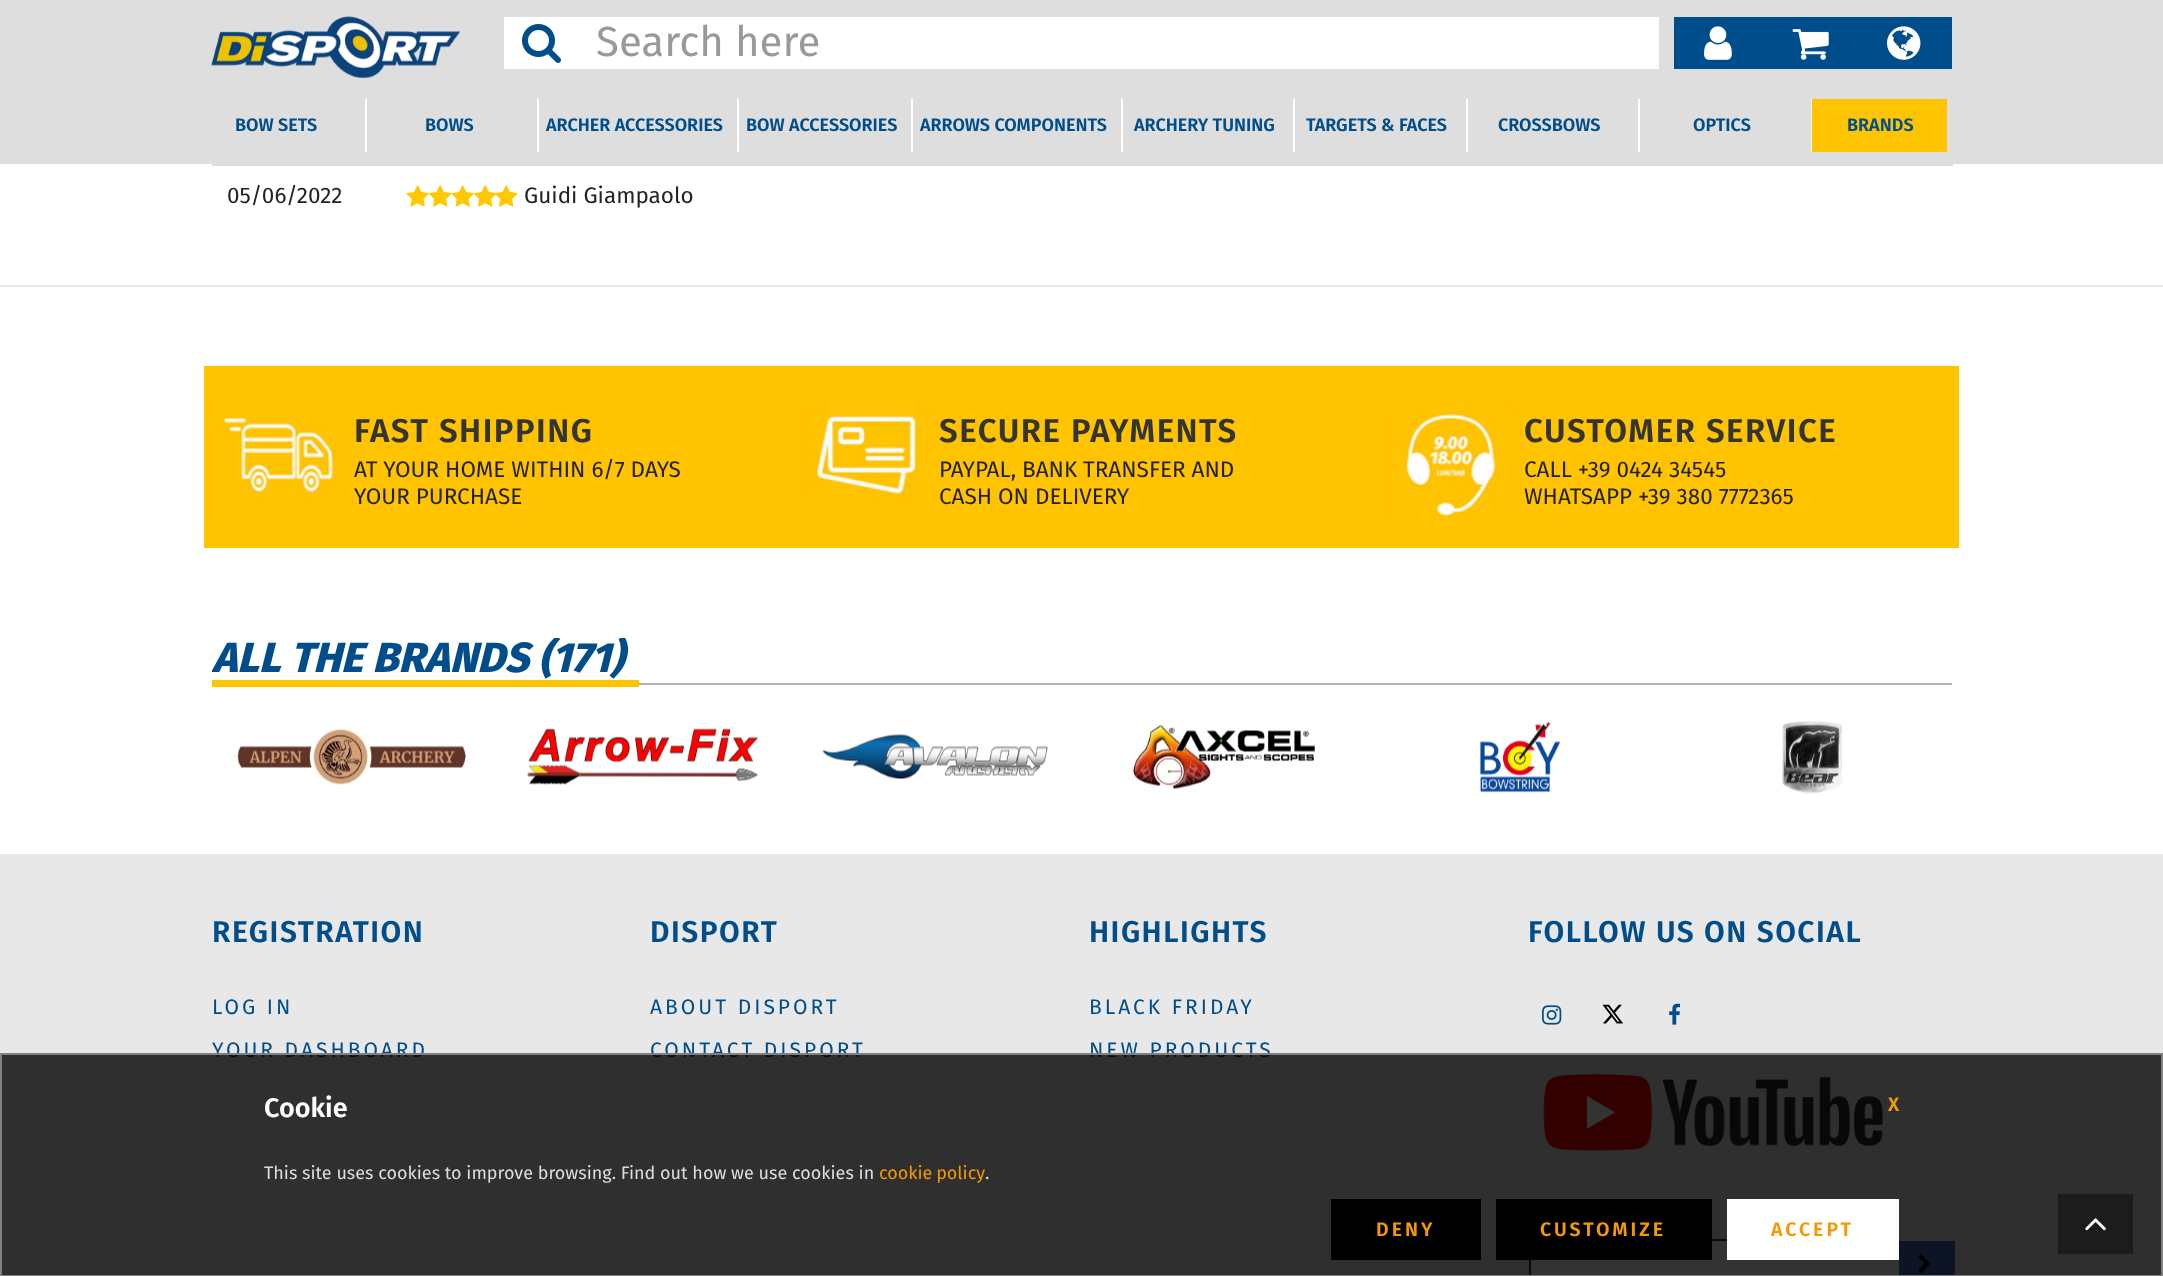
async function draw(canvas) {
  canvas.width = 2163
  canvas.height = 1276
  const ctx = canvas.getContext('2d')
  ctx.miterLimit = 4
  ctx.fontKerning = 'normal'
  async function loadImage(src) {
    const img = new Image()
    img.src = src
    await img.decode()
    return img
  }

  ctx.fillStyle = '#fff'
  ctx.fillRect(0, 0, 2163, 1276)
  ctx.fillStyle = '#dedede'
  ctx.fillRect(0, 0, 2163, 164)
  ctx.drawImage(await loadImage('image0.png'), 211, 16, 250, 62)
  ctx.fillStyle = '#fff'
  ctx.fillRect(504, 17, 1155, 52)
  ctx.drawImage(await loadImage('image1.png'), 522, 24, 39, 39)
  ctx.font = '42px Fira Sans'
  ctx.fillStyle = '#999'
  ctx.fillText('Search here', 596, 56)
  ctx.fillStyle = '#004d8b'
  ctx.fillRect(1674, 17, 278, 52)
  ctx.drawImage(await loadImage('image2.png'), 1704, 26, 28, 34)
  ctx.drawImage(await loadImage('image3.png'), 1792, 29, 37, 31)
  ctx.drawImage(await loadImage('image4.png'), 1887, 26, 34, 34)
  ctx.fillStyle = '#fff'
  ctx.fillRect(365, 99, 2, 53)
  ctx.font = '600 18px Fira Sans'
  ctx.fillStyle = '#004d8b'
  ctx.fillText('BOW SETS', 235, 131)
  ctx.fillStyle = '#fff'
  ctx.fillRect(537, 99, 2, 53)
  ctx.fillStyle = '#004d8b'
  ctx.fillText('BOWS', 425, 131)
  ctx.fillStyle = '#fff'
  ctx.fillRect(737, 99, 2, 53)
  ctx.fillStyle = '#004d8b'
  ctx.fillText('ARCHER ACCESSORIES', 546, 131)
  ctx.fillStyle = '#fff'
  ctx.fillRect(911, 99, 2, 53)
  ctx.fillStyle = '#004d8b'
  ctx.fillText('BOW ACCESSORIES', 746, 131)
  ctx.fillStyle = '#fff'
  ctx.fillRect(1121, 99, 2, 53)
  ctx.fillStyle = '#004d8b'
  ctx.fillText('ARROWS COMPONENTS', 920, 131)
  ctx.fillStyle = '#fff'
  ctx.fillRect(1293, 99, 2, 53)
  ctx.fillStyle = '#004d8b'
  ctx.fillText('ARCHERY TUNING', 1134, 131)
  ctx.fillStyle = '#fff'
  ctx.fillRect(1466, 99, 2, 53)
  ctx.fillStyle = '#004d8b'
  ctx.fillText('TARGETS & FACES', 1306, 131)
  ctx.fillStyle = '#fff'
  ctx.fillRect(1638, 99, 2, 53)
  ctx.fillStyle = '#004d8b'
  ctx.fillText('CROSSBOWS', 1498, 131)
  ctx.fillStyle = '#fff'
  ctx.fillRect(1811, 99, 1, 53)
  ctx.fillStyle = '#004d8b'
  ctx.fillText('OPTICS', 1693, 131)
  ctx.fillStyle = '#ffc400'
  ctx.fillRect(1812, 99, 135, 53)
  ctx.fillStyle = '#004d8b'
  ctx.fillText('BRANDS', 1847, 131)
  ctx.fillStyle = '#e8e8e8'
  ctx.fillRect(0, 285, 2163, 2)
  ctx.font = '22.5px Fira Sans'
  ctx.fillStyle = '#222'
  ctx.fillText('05/06/2022', 227, 203)
  ctx.fillStyle = '#ddd'
  ctx.fillRect(212, 164, 1741, 2)
  ctx.drawImage(await loadImage('image5.png'), 406, 185, 23, 22)
  ctx.drawImage(await loadImage('image6.png'), 429, 185, 23, 22)
  ctx.drawImage(await loadImage('image7.png'), 451, 185, 23, 22)
  ctx.drawImage(await loadImage('image8.png'), 474, 185, 22, 22)
  ctx.drawImage(await loadImage('image9.png'), 495, 185, 23, 22)
  ctx.fillStyle = '#222'
  ctx.fillText('Guidi Giampaolo', 524, 203)
  ctx.fillStyle = '#ffc300'
  ctx.fillRect(204, 366, 1755, 182)
  ctx.drawImage(await loadImage('image10.png'), 204, 403, 132, 122)
  ctx.letterSpacing = '1.5px'
  ctx.font = '600 33px Fira Sans'
  ctx.fillStyle = '#343432'
  ctx.fillText('FAST SHIPPING', 354, 442)
  ctx.letterSpacing = '0px'
  ctx.font = '22.5px Fira Sans'
  ctx.fillStyle = '#222'
  ctx.fillText('AT YOUR HOME WITHIN 6/7 DAYS', 354, 477)
  ctx.fillText('YOUR PURCHASE', 354, 504)
  ctx.drawImage(await loadImage('image11.png'), 789, 403, 150, 97)
  ctx.letterSpacing = '1.5px'
  ctx.font = '600 33px Fira Sans'
  ctx.fillStyle = '#343432'
  ctx.fillText('SECURE PAYMENTS', 939, 442)
  ctx.letterSpacing = '0px'
  ctx.font = '22.5px Fira Sans'
  ctx.fillStyle = '#222'
  ctx.fillText('PAYPAL, BANK TRANSFER AND', 939, 477)
  ctx.fillText('CASH ON DELIVERY', 939, 504)
  ctx.drawImage(await loadImage('image12.png'), 1374, 403, 150, 119)
  ctx.letterSpacing = '1.5px'
  ctx.font = '600 33px Fira Sans'
  ctx.fillStyle = '#343432'
  ctx.fillText('CUSTOMER SERVICE', 1524, 442)
  ctx.letterSpacing = '0px'
  ctx.font = '22.5px Fira Sans'
  ctx.fillStyle = '#222'
  ctx.fillText('CALL +39 0424 34545', 1524, 477)
  ctx.fillText('WHATSAPP +39 380 7772365', 1524, 504)
  ctx.fillStyle = '#ffc400'
  ctx.fillRect(212, 680, 427, 7)
  ctx.save()
  ctx.beginPath()
  ctx.rect(212, 638, 1740, 82)
  ctx.clip()
  ctx.font = 'italic 800 42px Fira Sans'
  ctx.fillStyle = '#004d8b'
  ctx.fillText('ALL THE BRANDS (171)', 212, 672)
  ctx.restore()
  ctx.fillStyle = '#b2b2b2'
  ctx.fillRect(639, 683, 1313, 2)
  ctx.drawImage(await loadImage('image13.png'), 237, 729, 229, 56)
  ctx.drawImage(await loadImage('image14.png'), 527, 728, 231, 57)
  ctx.drawImage(await loadImage('image15.png'), 822, 734, 226, 45)
  ctx.drawImage(await loadImage('image16.png'), 1133, 724, 182, 65)
  ctx.drawImage(await loadImage('image17.png'), 1480, 721, 80, 72)
  ctx.drawImage(await loadImage('image18.png'), 1782, 721, 60, 73)
  ctx.fillStyle = '#e8e8e8'
  ctx.fillRect(0, 854, 2163, 421)
  ctx.letterSpacing = '1.5px'
  ctx.font = '600 30px Fira Sans'
  ctx.fillStyle = '#004d8b'
  ctx.fillText('REGISTRATION', 212, 942)
  ctx.letterSpacing = '3px'
  ctx.font = '21px Fira Sans'
  ctx.fillText('LOG IN', 212, 1014)
  ctx.fillText('YOUR DASHBOARD', 212, 1057)
  ctx.letterSpacing = '1.5px'
  ctx.font = '600 30px Fira Sans'
  ctx.fillText('DISPORT', 650, 942)
  ctx.letterSpacing = '3px'
  ctx.font = '21px Fira Sans'
  ctx.fillText('ABOUT DISPORT', 650, 1014)
  ctx.fillText('CONTACT DISPORT', 650, 1057)
  ctx.letterSpacing = '1.5px'
  ctx.font = '600 30px Fira Sans'
  ctx.fillText('HIGHLIGHTS', 1089, 942)
  ctx.letterSpacing = '3px'
  ctx.font = '21px Fira Sans'
  ctx.fillText('BLACK FRIDAY', 1089, 1014)
  ctx.fillText('NEW PRODUCTS', 1089, 1057)
  ctx.letterSpacing = '1.5px'
  ctx.font = '600 30px Fira Sans'
  ctx.fillText('FOLLOW US ON SOCIAL', 1528, 942)
  ctx.drawImage(await loadImage('image19.png'), 1542, 1005, 20, 20)
  ctx.drawImage(await loadImage('image20.png'), 1602, 1004, 21, 20)
  ctx.drawImage(await loadImage('image21.png'), 1669, 1003, 12, 22)
  ctx.drawImage(await loadImage('image22.png'), 1543, 1074, 340, 77)
  ctx.fillStyle = '#fff'
  ctx.fillRect(1531, 1241, 368, 34)
  ctx.fillStyle = '#343432'
  ctx.fillRect(1712, 1239, 15, 2)
  ctx.fillRect(1529, 1260, 2, 16)
  ctx.fillStyle = '#4267b2'
  ctx.fillRect(1899, 1241, 56, 34)
  ctx.drawImage(await loadImage('image23.png'), 1918, 1254, 13, 20)
  ctx.fillStyle = '#000000cc'
  ctx.beginPath()
  ctx.rect(1, 1054, 2161, 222)
  ctx.fill()
  ctx.strokeStyle = '#808080'
  ctx.lineWidth = 2
  ctx.stroke()
  ctx.letterSpacing = '0px'
  ctx.font = '600 27px Fira Sans'
  ctx.fillStyle = '#fefefe'
  ctx.fillText('Cookie', 264, 1117)
  ctx.font = '600 19.5px Fira Sans'
  ctx.fillStyle = '#f49a00'
  ctx.fillText('X', 1888, 1111)
  ctx.font = '18px Fira Sans'
  ctx.fillStyle = '#ddd'
  ctx.fillText('This site uses cookies to improve browsing. Find out how we use cookies in', 264, 1179)
  ctx.wordSpacing = '-1px'
  ctx.fillStyle = '#f49a00'
  ctx.fillText('cookie policy', 879, 1179)
  ctx.wordSpacing = '0px'
  ctx.fillStyle = '#ddd'
  ctx.fillText('.', 985, 1179)
  ctx.fillStyle = '#000'
  ctx.fillRect(1331, 1199, 150, 61)
  ctx.letterSpacing = '3px'
  ctx.font = '600 19.5px Fira Sans'
  ctx.fillStyle = '#f49a00'
  ctx.fillText('DENY', 1376, 1236)
  ctx.fillStyle = '#000'
  ctx.fillRect(1496, 1199, 216, 61)
  ctx.fillStyle = '#f49a00'
  ctx.fillText('CUSTOMIZE', 1540, 1236)
  ctx.fillStyle = '#fff'
  ctx.fillRect(1727, 1199, 172, 61)
  ctx.fillStyle = '#f49a00'
  ctx.fillText('ACCEPT', 1771, 1236)
  ctx.fillStyle = '#1c1c1c'
  ctx.fillRect(2058, 1194, 75, 60)
  ctx.drawImage(await loadImage('image24.png'), 2085, 1218, 21, 13)
}

draw(document.querySelector('canvas'))
